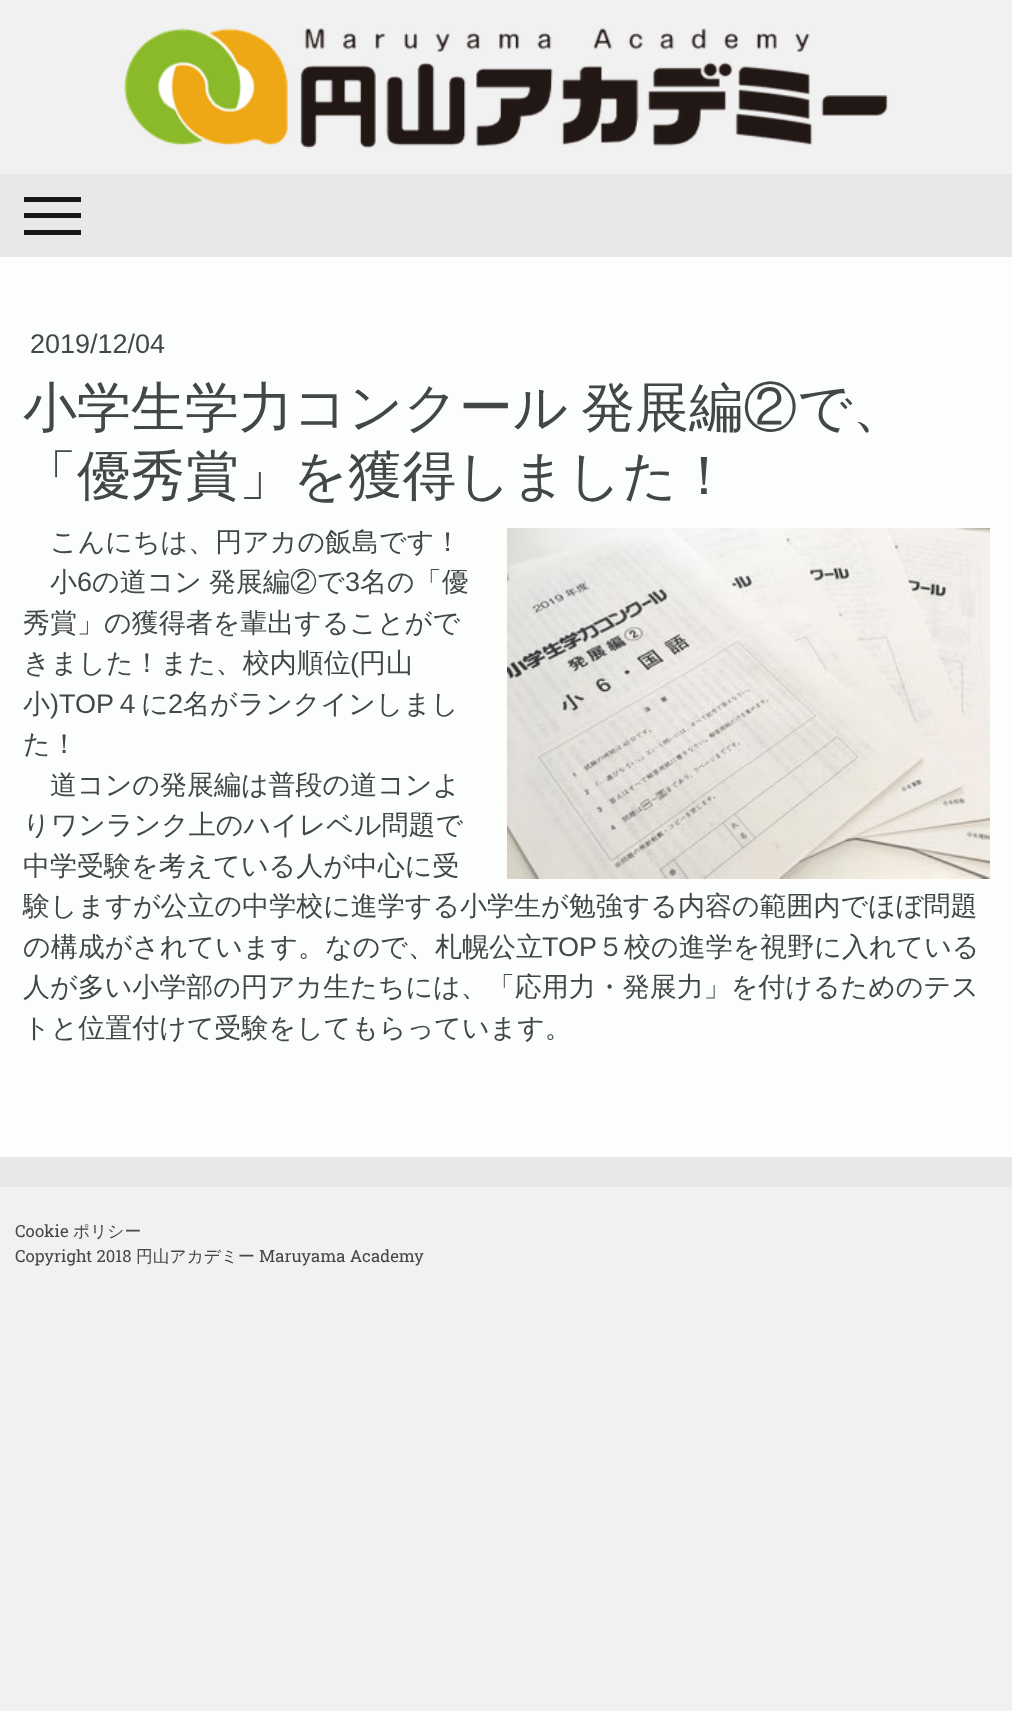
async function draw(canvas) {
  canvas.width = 1012
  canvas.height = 1711
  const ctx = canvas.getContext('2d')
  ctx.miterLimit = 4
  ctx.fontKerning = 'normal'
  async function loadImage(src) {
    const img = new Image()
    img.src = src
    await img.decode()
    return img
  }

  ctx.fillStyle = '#f1f1f1'
  ctx.fillRect(0, 0, 1012, 1711)
  ctx.drawImage(await loadImage('image0.png'), 124, 28, 765, 121)
  ctx.fillStyle = '#e7e9e8'
  ctx.fillRect(0, 174, 1012, 83)
  ctx.fillStyle = '#161817'
  ctx.fillRect(24, 213, 57, 5)
  ctx.fillRect(24, 197, 57, 5)
  ctx.fillRect(24, 230, 57, 5)
  ctx.fillStyle = '#fcfefc'
  ctx.fillRect(0, 257, 1012, 900)
  ctx.font = '27px Liberation Sans'
  ctx.fillStyle = '#434745'
  ctx.fillText('2019/12/04', 30, 353)
  ctx.wordSpacing = '-3px'
  ctx.font = '500 54px WenQuanYi Zen Hei'
  ctx.fillText('小学生学力コンクール 発展編②で、', 23, 426)
  ctx.wordSpacing = '0px'
  ctx.fillText('「優秀賞」を獲得しました！', 23, 494)
  ctx.font = '500 27px WenQuanYi Zen Hei'
  ctx.fillText('こんにちは、円アカの飯島です！', 50, 551)
  ctx.fillText('小', 50, 591)
  ctx.font = '27px Liberation Sans'
  ctx.fillText('6', 77, 591)
  ctx.wordSpacing = '-1px'
  ctx.font = '500 27px WenQuanYi Zen Hei'
  ctx.fillText('の道コン 発展編②で', 92, 591)
  ctx.wordSpacing = '0px'
  ctx.font = '27px Liberation Sans'
  ctx.fillText('3', 345, 591)
  ctx.font = '500 27px WenQuanYi Zen Hei'
  ctx.fillText('名の「優', 360, 591)
  ctx.fillText('秀賞」の獲得者を輩出することがで', 23, 632)
  ctx.fillText('きました！また、校内順位', 23, 672)
  ctx.font = '27px Liberation Sans'
  ctx.fillText('(', 350, 672)
  ctx.font = '500 27px WenQuanYi Zen Hei'
  ctx.fillText('円山', 359, 672)
  ctx.fillText('小', 23, 713)
  ctx.font = '27px Liberation Sans'
  ctx.fillText(')TOP', 50, 713)
  ctx.font = '500 27px WenQuanYi Zen Hei'
  ctx.fillText('４に', 114, 713)
  ctx.font = '27px Liberation Sans'
  ctx.fillText('2', 168, 713)
  ctx.font = '500 27px WenQuanYi Zen Hei'
  ctx.fillText('名がランクインしまし', 183, 713)
  ctx.fillText('た！', 23, 753)
  ctx.fillText('道コンの発展編は普段の道コンよ', 50, 794)
  ctx.fillText('りワンランク上のハイレベル問題で', 23, 834)
  ctx.fillText('中学受験を考えている人が中心に受', 23, 875)
  ctx.fillText('験しますが公立の中学校に進学する小学生が勉強する内容の範囲内でほぼ問題', 23, 915)
  ctx.fillText('の構成がされています。なので、札幌公立', 23, 956)
  ctx.font = '27px Liberation Sans'
  ctx.fillText('TOP', 542, 956)
  ctx.font = '500 27px WenQuanYi Zen Hei'
  ctx.fillText('５校の進学を視野に入れている', 597, 956)
  ctx.fillText('人が多い小学部の円アカ生たちには、「応用力・発展力」を付けるためのテス', 23, 996)
  ctx.fillText('トと位置付けて受験をしてもらっています。', 23, 1037)
  ctx.drawImage(await loadImage('image1.png'), 507, 528, 483, 351)
  ctx.fillStyle = '#e7e9e8'
  ctx.fillRect(0, 1157, 1012, 30)
  ctx.font = '16.75px Roboto Slab'
  ctx.fillStyle = '#434745'
  ctx.fillText('Cookie', 15, 1237)
  ctx.font = '500 16.75px WenQuanYi Zen Hei'
  ctx.fillText('ポリシー', 73, 1237)
  ctx.font = '16.75px Roboto Slab'
  ctx.fillText('Copyright 2018', 15, 1262)
  ctx.font = '500 16.75px WenQuanYi Zen Hei'
  ctx.fillText('円山アカデミー', 136, 1262)
  ctx.font = '16.75px Roboto Slab'
  ctx.fillText('Maruyama Academy', 259, 1262)
}

draw(document.querySelector('canvas'))
